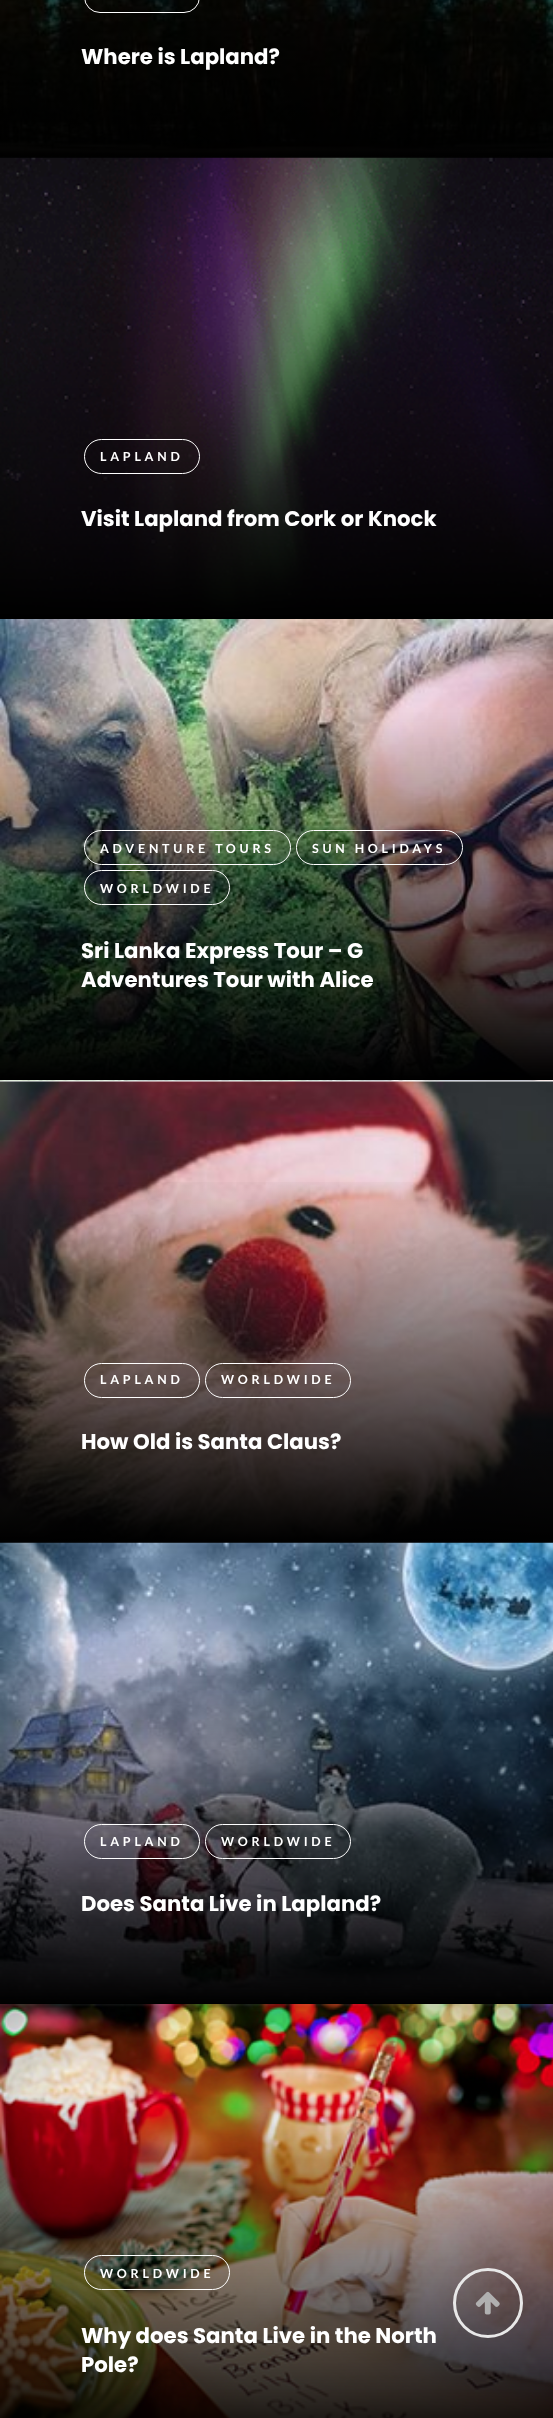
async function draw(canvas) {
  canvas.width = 553
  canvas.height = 2418
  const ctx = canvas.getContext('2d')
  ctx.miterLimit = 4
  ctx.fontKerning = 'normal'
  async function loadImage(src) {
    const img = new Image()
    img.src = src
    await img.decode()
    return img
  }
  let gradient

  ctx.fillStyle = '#fff'
  ctx.fillRect(0, 0, 553, 2418)
  ctx.drawImage(await loadImage('image0.png'), 0, 0, 553, 156)
  gradient = ctx.createLinearGradient(277, -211, 277, 158)
  gradient.addColorStop(0, '#00000000')
  gradient.addColorStop(1, '#000')
  ctx.fillStyle = gradient
  ctx.fillRect(0, 0, 553, 158)
  ctx.beginPath()
  ctx.roundRect(84.5, -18.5, 115, 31, 17)
  ctx.strokeStyle = '#fff'
  ctx.stroke()
  ctx.font = 'bold 21.25px Poppins'
  ctx.fillStyle = '#fff'
  ctx.fillText('Where is Lapland?', 81, 64)
  ctx.drawImage(await loadImage('image1.png'), 0, 157, 553, 462)
  ctx.beginPath()
  ctx.roundRect(84.5, 439.5, 115, 34, 17)
  ctx.stroke()
  ctx.letterSpacing = '3.75px'
  ctx.font = 'bold 12.5px Lato'
  ctx.fillText('LAPLAND', 100, 461)
  ctx.letterSpacing = '0px'
  ctx.font = 'bold 21.25px Poppins'
  ctx.fillText('Visit Lapland from Cork or Knock', 81, 526)
  ctx.drawImage(await loadImage('image2.png'), 0, 619, 553, 462)
  ctx.beginPath()
  ctx.roundRect(84.5, 830.5, 206, 34, 17)
  ctx.stroke()
  ctx.letterSpacing = '3.75px'
  ctx.font = 'bold 12.5px Lato'
  ctx.fillText('ADVENTURE TOURS', 100, 853)
  ctx.beginPath()
  ctx.roundRect(296.5, 830.5, 166, 34, 17)
  ctx.stroke()
  ctx.fillText('SUN HOLIDAYS', 312, 853)
  ctx.beginPath()
  ctx.roundRect(84.5, 870.5, 145, 34, 17)
  ctx.stroke()
  ctx.fillText('WORLDWIDE', 100, 893)
  ctx.letterSpacing = '0px'
  ctx.font = 'bold 21.25px Poppins'
  ctx.fillText('Sri Lanka Express Tour – G', 81, 958)
  ctx.fillText('Adventures Tour with Alice', 81, 987)
  ctx.drawImage(await loadImage('image3.png'), 0, 1081, 553, 460)
  gradient = ctx.createLinearGradient(277, 1174, 277, 1543)
  gradient.addColorStop(0, '#00000000')
  gradient.addColorStop(1, '#000')
  ctx.fillStyle = gradient
  ctx.fillRect(0, 1182, 553, 361)
  ctx.beginPath()
  ctx.roundRect(84.5, 1363.5, 115, 34, 17)
  ctx.stroke()
  ctx.letterSpacing = '3.75px'
  ctx.font = 'bold 12.5px Lato'
  ctx.fillStyle = '#fff'
  ctx.fillText('LAPLAND', 100, 1384)
  ctx.beginPath()
  ctx.roundRect(205.5, 1363.5, 145, 34, 17)
  ctx.stroke()
  ctx.fillText('WORLDWIDE', 221, 1384)
  ctx.letterSpacing = '0px'
  ctx.font = 'bold 21.25px Poppins'
  ctx.fillText('How Old is Santa Claus?', 81, 1449)
  ctx.drawImage(await loadImage('image4.png'), 0, 1542, 553, 462)
  ctx.beginPath()
  ctx.roundRect(84.5, 1824.5, 115, 34, 17)
  ctx.stroke()
  ctx.letterSpacing = '3.75px'
  ctx.font = 'bold 12.5px Lato'
  ctx.fillText('LAPLAND', 100, 1846)
  ctx.beginPath()
  ctx.roundRect(205.5, 1824.5, 145, 34, 17)
  ctx.stroke()
  ctx.fillText('WORLDWIDE', 221, 1846)
  ctx.letterSpacing = '0px'
  ctx.font = 'bold 21.25px Poppins'
  ctx.fillText('Does Santa Live in Lapland?', 81, 1911)
  ctx.drawImage(await loadImage('image5.png'), 0, 2004, 553, 414)
  ctx.beginPath()
  ctx.roundRect(84.5, 2255.5, 145, 34, 17)
  ctx.stroke()
  ctx.letterSpacing = '3.75px'
  ctx.font = 'bold 12.5px Lato'
  ctx.fillText('WORLDWIDE', 100, 2278)
  ctx.letterSpacing = '0px'
  ctx.font = 'bold 21.25px Poppins'
  ctx.fillText('Why does Santa Live in the North', 81, 2343)
  ctx.fillText('Pole?', 81, 2372)
  ctx.beginPath()
  ctx.arc(488, 2303, 33.5, 0, 2 * Math.PI)
  ctx.strokeStyle = '#e8e8e8'
  ctx.lineWidth = 3
  ctx.stroke()
  ctx.drawImage(await loadImage('image6.png'), 475, 2291, 25, 24)
}

draw(document.querySelector('canvas'))
